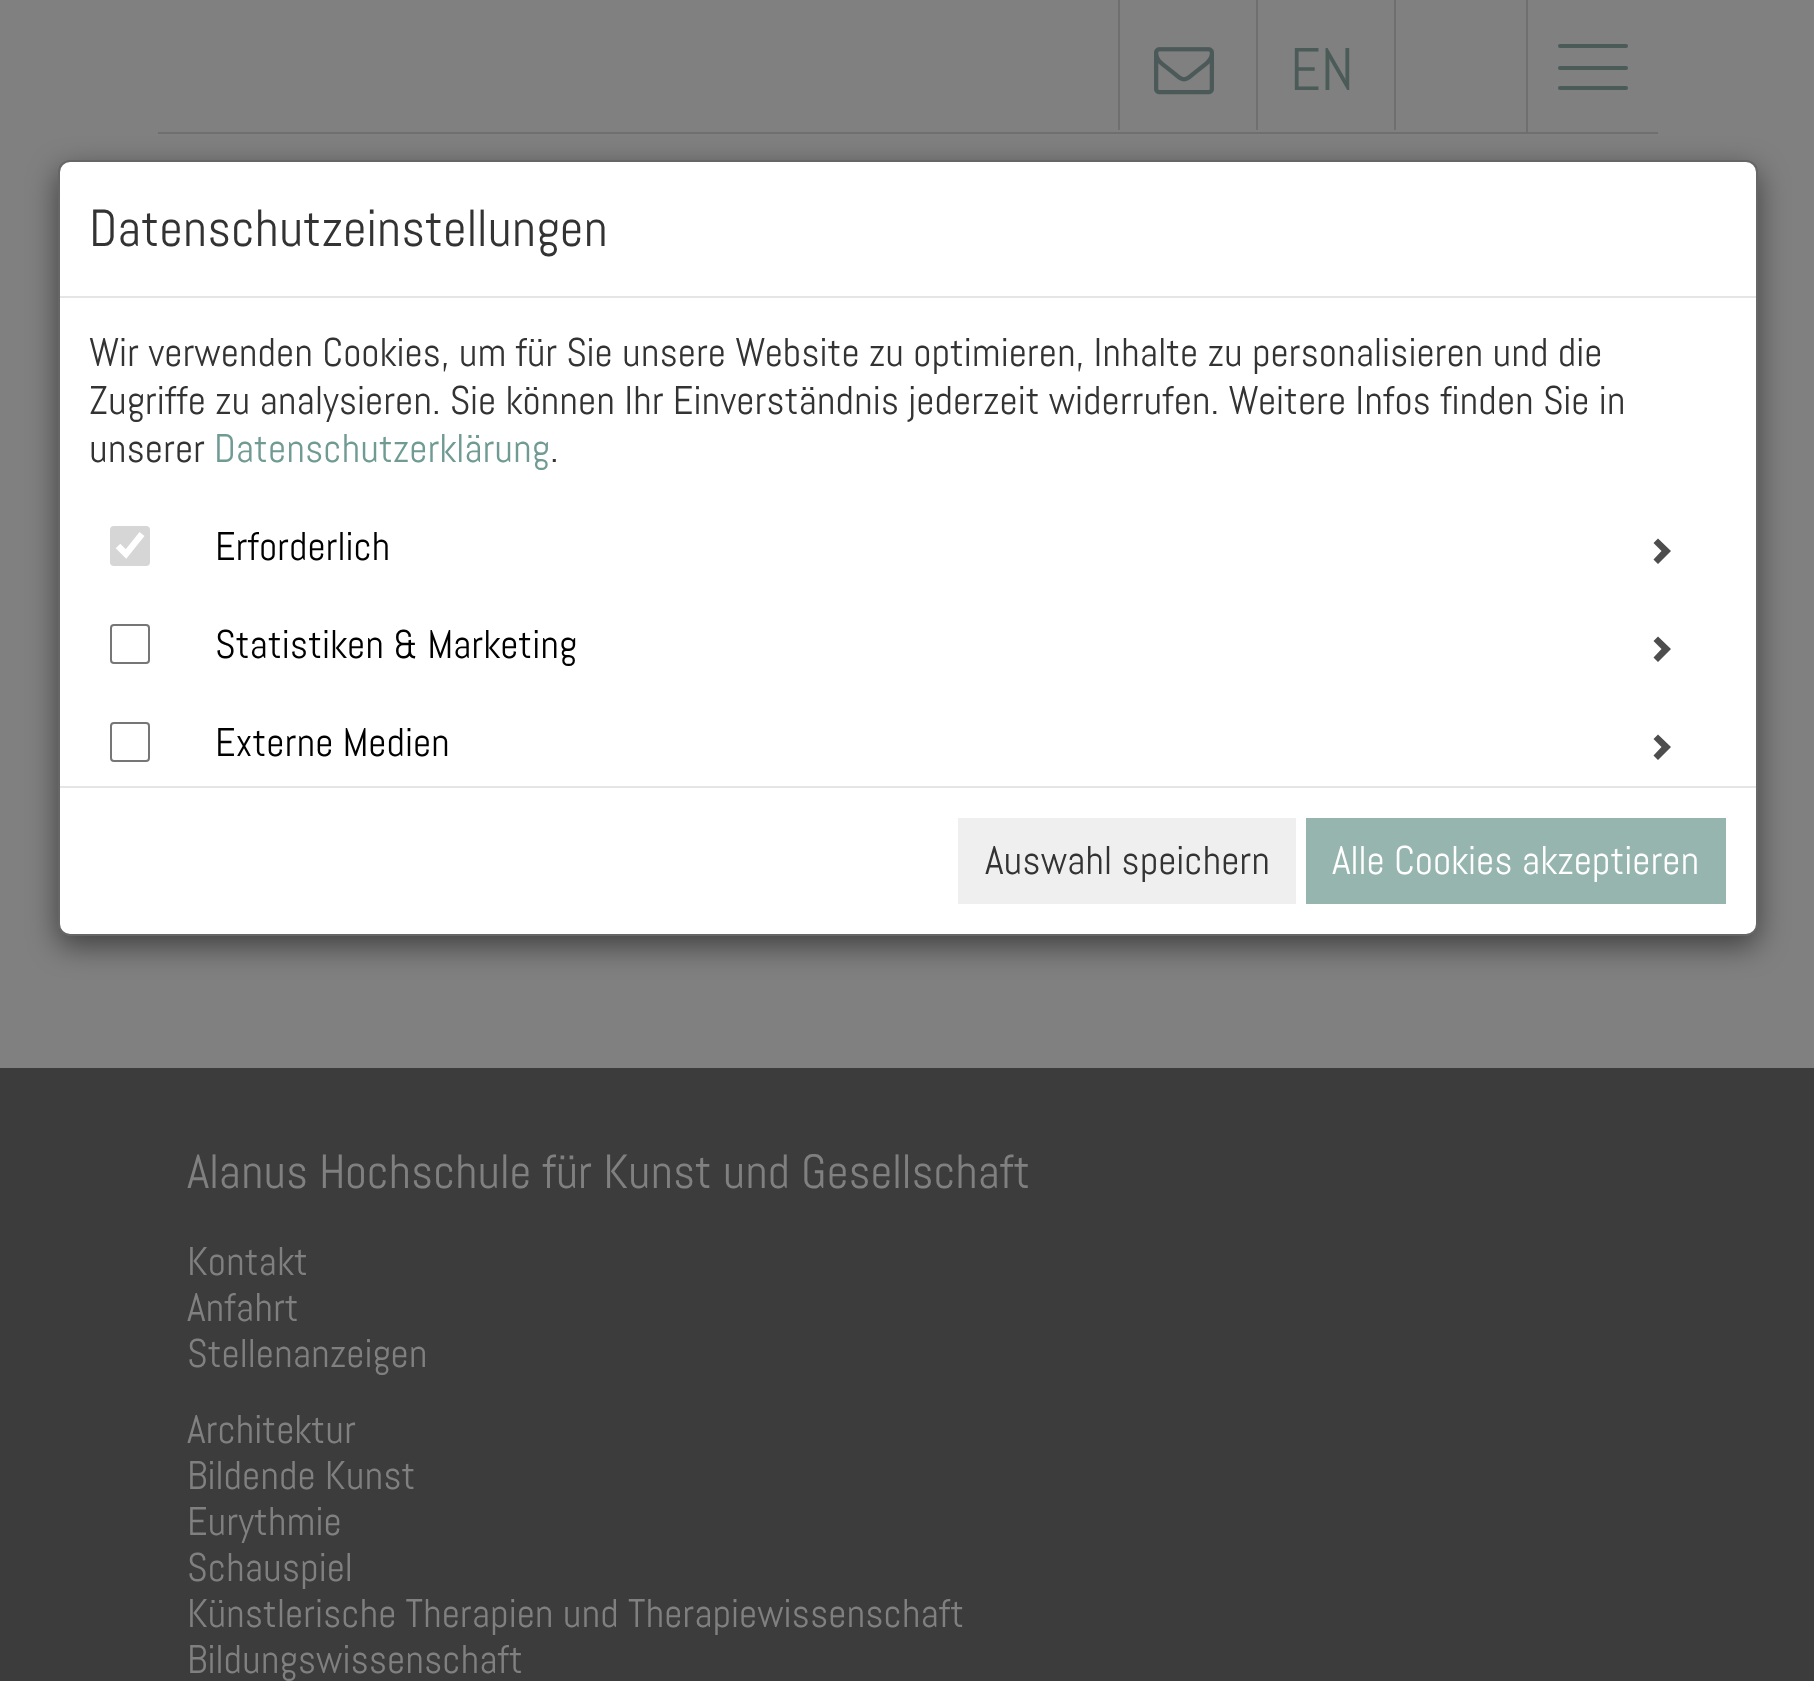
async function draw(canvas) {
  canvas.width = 1814
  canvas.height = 1681
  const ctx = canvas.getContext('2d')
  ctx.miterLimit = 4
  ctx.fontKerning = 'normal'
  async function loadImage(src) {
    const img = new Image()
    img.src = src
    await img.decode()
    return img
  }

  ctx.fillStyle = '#808080'
  ctx.fillRect(0, 0, 1814, 1681)
  ctx.fillStyle = '#6f6f6f'
  ctx.fillRect(158, 132, 1500, 2)
  ctx.fillRect(1118, 0, 2, 130)
  ctx.drawImage(await loadImage('image0.png'), 1154, 47, 60, 48)
  ctx.fillRect(1256, 0, 2, 130)
  ctx.font = '60px Abel'
  ctx.fillStyle = '#4b5b58'
  ctx.fillText('EN', 1290, 90)
  ctx.fillStyle = '#6f6f6f'
  ctx.fillRect(1394, 0, 2, 130)
  ctx.fillRect(1526, 0, 2, 132)
  ctx.fillStyle = '#4b5b58'
  ctx.beginPath()
  ctx.roundRect(1558, 66, 70, 4, 2)
  ctx.fill()
  ctx.beginPath()
  ctx.roundRect(1558, 44, 70, 4, 2)
  ctx.fill()
  ctx.beginPath()
  ctx.roundRect(1558, 86, 70, 4, 2)
  ctx.fill()
  ctx.save()
  ctx.beginPath()
  ctx.moveTo(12, 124)
  ctx.lineTo(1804, 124)
  ctx.lineTo(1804, 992)
  ctx.lineTo(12, 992)
  ctx.closePath()
  ctx.moveTo(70, 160)
  ctx.lineTo(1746, 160)
  ctx.bezierCurveTo(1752.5, 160, 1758, 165.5, 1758, 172)
  ctx.lineTo(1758, 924)
  ctx.bezierCurveTo(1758, 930.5, 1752.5, 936, 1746, 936)
  ctx.lineTo(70, 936)
  ctx.bezierCurveTo(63.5, 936, 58, 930.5, 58, 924)
  ctx.lineTo(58, 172)
  ctx.bezierCurveTo(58, 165.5, 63.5, 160, 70, 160)
  ctx.closePath()
  ctx.clip('evenodd')
  ctx.fillStyle = '#00000080'
  ctx.filter = 'blur(15px)'
  ctx.beginPath()
  ctx.roundRect(58, 170, 1700, 776, 12)
  ctx.fill()
  ctx.filter = 'none'
  ctx.restore()
  ctx.fillStyle = '#fff'
  ctx.beginPath()
  ctx.roundRect(60, 162, 1696, 772, 10)
  ctx.fill()
  ctx.beginPath()
  ctx.roundRect(59, 161, 1698, 774, 11)
  ctx.strokeStyle = '#00000033'
  ctx.lineWidth = 2
  ctx.stroke()
  ctx.fillStyle = '#e5e5e5'
  ctx.fillRect(60, 296, 1696, 2)
  ctx.font = '52px Abel'
  ctx.fillStyle = '#333'
  ctx.fillText('Datenschutzeinstellungen', 89, 246)
  ctx.font = '40px Abel'
  ctx.fillText('Wir verwenden Cookies, um für Sie unsere Website zu optimieren, Inhalte zu personalisieren und die', 89, 366)
  ctx.fillText('Zugriffe zu analysieren. Sie können Ihr Einverständnis jederzeit widerrufen. Weitere Infos finden Sie in', 89, 414)
  ctx.fillText('unserer', 89, 462)
  ctx.fillStyle = '#709b93'
  ctx.fillText('Datenschutzerklärung', 214, 462)
  ctx.fillStyle = '#333'
  ctx.fillText('.', 550, 462)
  ctx.fillStyle = '#d6d6d6'
  ctx.beginPath()
  ctx.roundRect(110, 526, 40, 40, 4)
  ctx.fill()
  ctx.beginPath()
  ctx.moveTo(118, 546)
  ctx.lineTo(126, 554)
  ctx.lineTo(142, 534)
  ctx.strokeStyle = '#fff'
  ctx.lineWidth = 6.4
  ctx.stroke()
  ctx.fillStyle = '#000'
  ctx.fillText('Erforderlich', 215, 560)
  ctx.fillStyle = '#4d4d4d'
  ctx.beginPath()
  ctx.moveTo(1671, 551)
  ctx.lineTo(1658, 564)
  ctx.lineTo(1653.5, 559.5)
  ctx.lineTo(1661.5, 551)
  ctx.lineTo(1653.5, 543)
  ctx.lineTo(1658, 538.5)
  ctx.closePath()
  ctx.fill()
  ctx.beginPath()
  ctx.roundRect(111, 625, 38, 38, 3)
  ctx.strokeStyle = '#767676'
  ctx.lineWidth = 2
  ctx.stroke()
  ctx.fillStyle = '#000'
  ctx.fillText('Statistiken & Marketing', 215, 658)
  ctx.fillStyle = '#4d4d4d'
  ctx.beginPath()
  ctx.moveTo(1671, 649)
  ctx.lineTo(1658, 662)
  ctx.lineTo(1653.5, 657.5)
  ctx.lineTo(1661.5, 649)
  ctx.lineTo(1653.5, 641)
  ctx.lineTo(1658, 636.5)
  ctx.closePath()
  ctx.fill()
  ctx.beginPath()
  ctx.roundRect(111, 723, 38, 38, 3)
  ctx.stroke()
  ctx.fillStyle = '#000'
  ctx.fillText('Externe Medien', 215, 756)
  ctx.fillStyle = '#4d4d4d'
  ctx.beginPath()
  ctx.moveTo(1671, 747)
  ctx.lineTo(1658, 760)
  ctx.lineTo(1653.5, 755.5)
  ctx.lineTo(1661.5, 747)
  ctx.lineTo(1653.5, 739)
  ctx.lineTo(1658, 734.5)
  ctx.closePath()
  ctx.fill()
  ctx.fillStyle = '#e5e5e5'
  ctx.fillRect(60, 786, 1696, 2)
  ctx.fillStyle = '#efefef'
  ctx.fillRect(958, 818, 338, 86)
  ctx.fillStyle = '#333'
  ctx.fillText('Auswahl speichern', 985, 874)
  ctx.fillStyle = '#96b5af'
  ctx.fillRect(1306, 818, 420, 86)
  ctx.fillStyle = '#fff'
  ctx.fillText('Alle Cookies akzeptieren', 1332, 874)
  ctx.fillStyle = '#3c3c3c'
  ctx.fillRect(0, 1068, 1814, 613)
  ctx.font = '48px Abel'
  ctx.fillStyle = '#808080'
  ctx.fillText('Alanus Hochschule für Kunst und Gesellschaft', 187, 1188)
  ctx.font = '40px Abel'
  ctx.fillText('Kontakt', 187, 1275)
  ctx.fillText('Anfahrt', 187, 1321)
  ctx.fillText('Stellenanzeigen', 187, 1367)
  ctx.fillText('Architektur', 187, 1443)
  ctx.fillText('Bildende Kunst', 187, 1489)
  ctx.fillText('Eurythmie', 187, 1535)
  ctx.fillText('Schauspiel', 187, 1581)
  ctx.fillText('Künstlerische Therapien und Therapiewissenschaft', 187, 1627)
  ctx.fillText('Bildungswissenschaft', 187, 1673)
}

draw(document.querySelector('canvas'))
